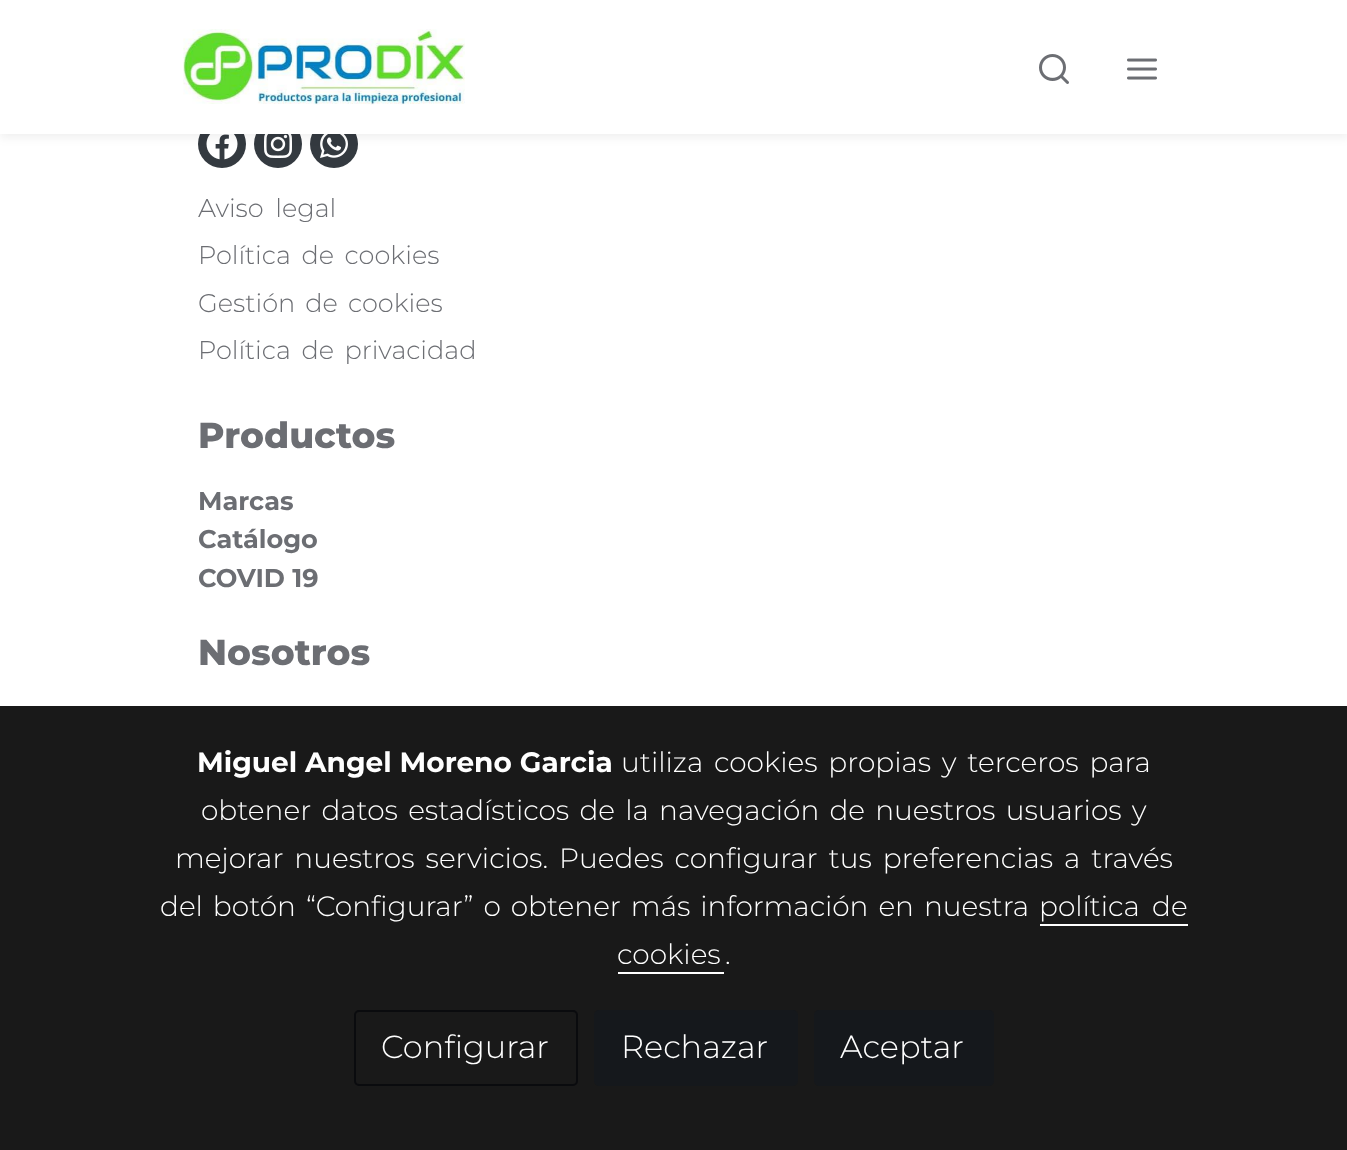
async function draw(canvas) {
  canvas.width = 1347
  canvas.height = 1150
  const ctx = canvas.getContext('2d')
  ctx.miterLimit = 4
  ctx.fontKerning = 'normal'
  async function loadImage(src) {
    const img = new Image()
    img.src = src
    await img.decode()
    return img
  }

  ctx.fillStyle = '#fff'
  ctx.fillRect(0, 0, 1347, 1150)
  ctx.fillStyle = '#191919'
  ctx.fillRect(0, 706, 1347, 444)
  ctx.fillStyle = '#343a40'
  ctx.beginPath()
  ctx.arc(222, 144, 24, 0, 2 * Math.PI)
  ctx.fill()
  ctx.drawImage(await loadImage('image3.png'), 206, 134, 32, 26)
  ctx.beginPath()
  ctx.arc(278, 144, 24, 0, 2 * Math.PI)
  ctx.fill()
  ctx.drawImage(await loadImage('image4.png'), 264, 134, 28, 24)
  ctx.beginPath()
  ctx.arc(334, 144, 24, 0, 2 * Math.PI)
  ctx.fill()
  ctx.drawImage(await loadImage('image5.png'), 320, 134, 28, 24)
  ctx.fillStyle = '#0000000f'
  ctx.filter = 'blur(5px)'
  ctx.beginPath()
  ctx.rect(0, 4, 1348, 134)
  ctx.fill()
  ctx.filter = 'none'
  ctx.fillStyle = '#fff'
  ctx.fillRect(0, 0, 1347, 134)
  ctx.drawImage(await loadImage('image0.png'), 183, 29, 282, 76)
  ctx.drawImage(await loadImage('image1.png'), 1039, 54, 30, 30)
  ctx.drawImage(await loadImage('image2.png'), 1127, 58, 30, 22)
  ctx.wordSpacing = '5px'
  ctx.font = '300 25.6px Montserrat'
  ctx.fillStyle = '#6c6e73'
  ctx.fillText('Aviso legal', 198, 217)
  ctx.wordSpacing = '4px'
  ctx.fillText('Política de cookies', 198, 264)
  ctx.wordSpacing = '3.5px'
  ctx.fillText('Gestión de cookies', 198, 312)
  ctx.wordSpacing = '4px'
  ctx.fillText('Política de privacidad', 198, 359)
  ctx.wordSpacing = '0px'
  ctx.font = '800 36px Montserrat'
  ctx.fillText('Productos', 198, 448)
  ctx.font = 'bold 25.6px Montserrat'
  ctx.fillText('Marcas', 198, 510)
  ctx.fillText('Catálogo', 198, 548)
  ctx.fillText('COVID 19', 198, 587)
  ctx.font = '800 36px Montserrat'
  ctx.fillText('Nosotros', 198, 665)
  ctx.font = 'bold 28px Montserrat'
  ctx.fillStyle = '#fff'
  ctx.fillText('Miguel Angel Moreno Garcia', 197, 772)
  ctx.wordSpacing = '3.5px'
  ctx.font = '300 28px Montserrat'
  ctx.fillText('utiliza cookies propias y terceros para', 621, 772)
  ctx.wordSpacing = '3px'
  ctx.fillText('obtener datos estadísticos de la navegación de nuestros usuarios y', 201, 820)
  ctx.wordSpacing = '3.75px'
  ctx.fillText('mejorar nuestros servicios. Puedes configurar tus preferencias a través', 175, 868)
  ctx.wordSpacing = '2.75px'
  ctx.fillText('del botón “Configurar” o obtener más información en nuestra', 160, 916)
  ctx.wordSpacing = '5px'
  ctx.fillText('política de', 1039, 916)
  ctx.fillRect(1040, 924, 148, 2)
  ctx.wordSpacing = '0px'
  ctx.fillText('cookies', 617, 964)
  ctx.fillText('.', 725, 964)
  ctx.fillRect(618, 972, 106, 2)
  ctx.beginPath()
  ctx.roundRect(355, 1011, 222, 74, 4)
  ctx.strokeStyle = '#0a0b0e'
  ctx.lineWidth = 2
  ctx.stroke()
  ctx.font = '300 32px Montserrat'
  ctx.fillText('Configurar', 381, 1058)
  ctx.fillStyle = '#15181c'
  ctx.beginPath()
  ctx.roundRect(594, 1010, 204, 76, 5)
  ctx.fill()
  ctx.fillStyle = '#fff'
  ctx.fillText('Rechazar', 621, 1058)
  ctx.fillStyle = '#15181c'
  ctx.beginPath()
  ctx.roundRect(814, 1010, 180, 76, 5)
  ctx.fill()
  ctx.fillStyle = '#fff'
  ctx.fillText('Aceptar', 840, 1058)
}

draw(document.querySelector('canvas'))
